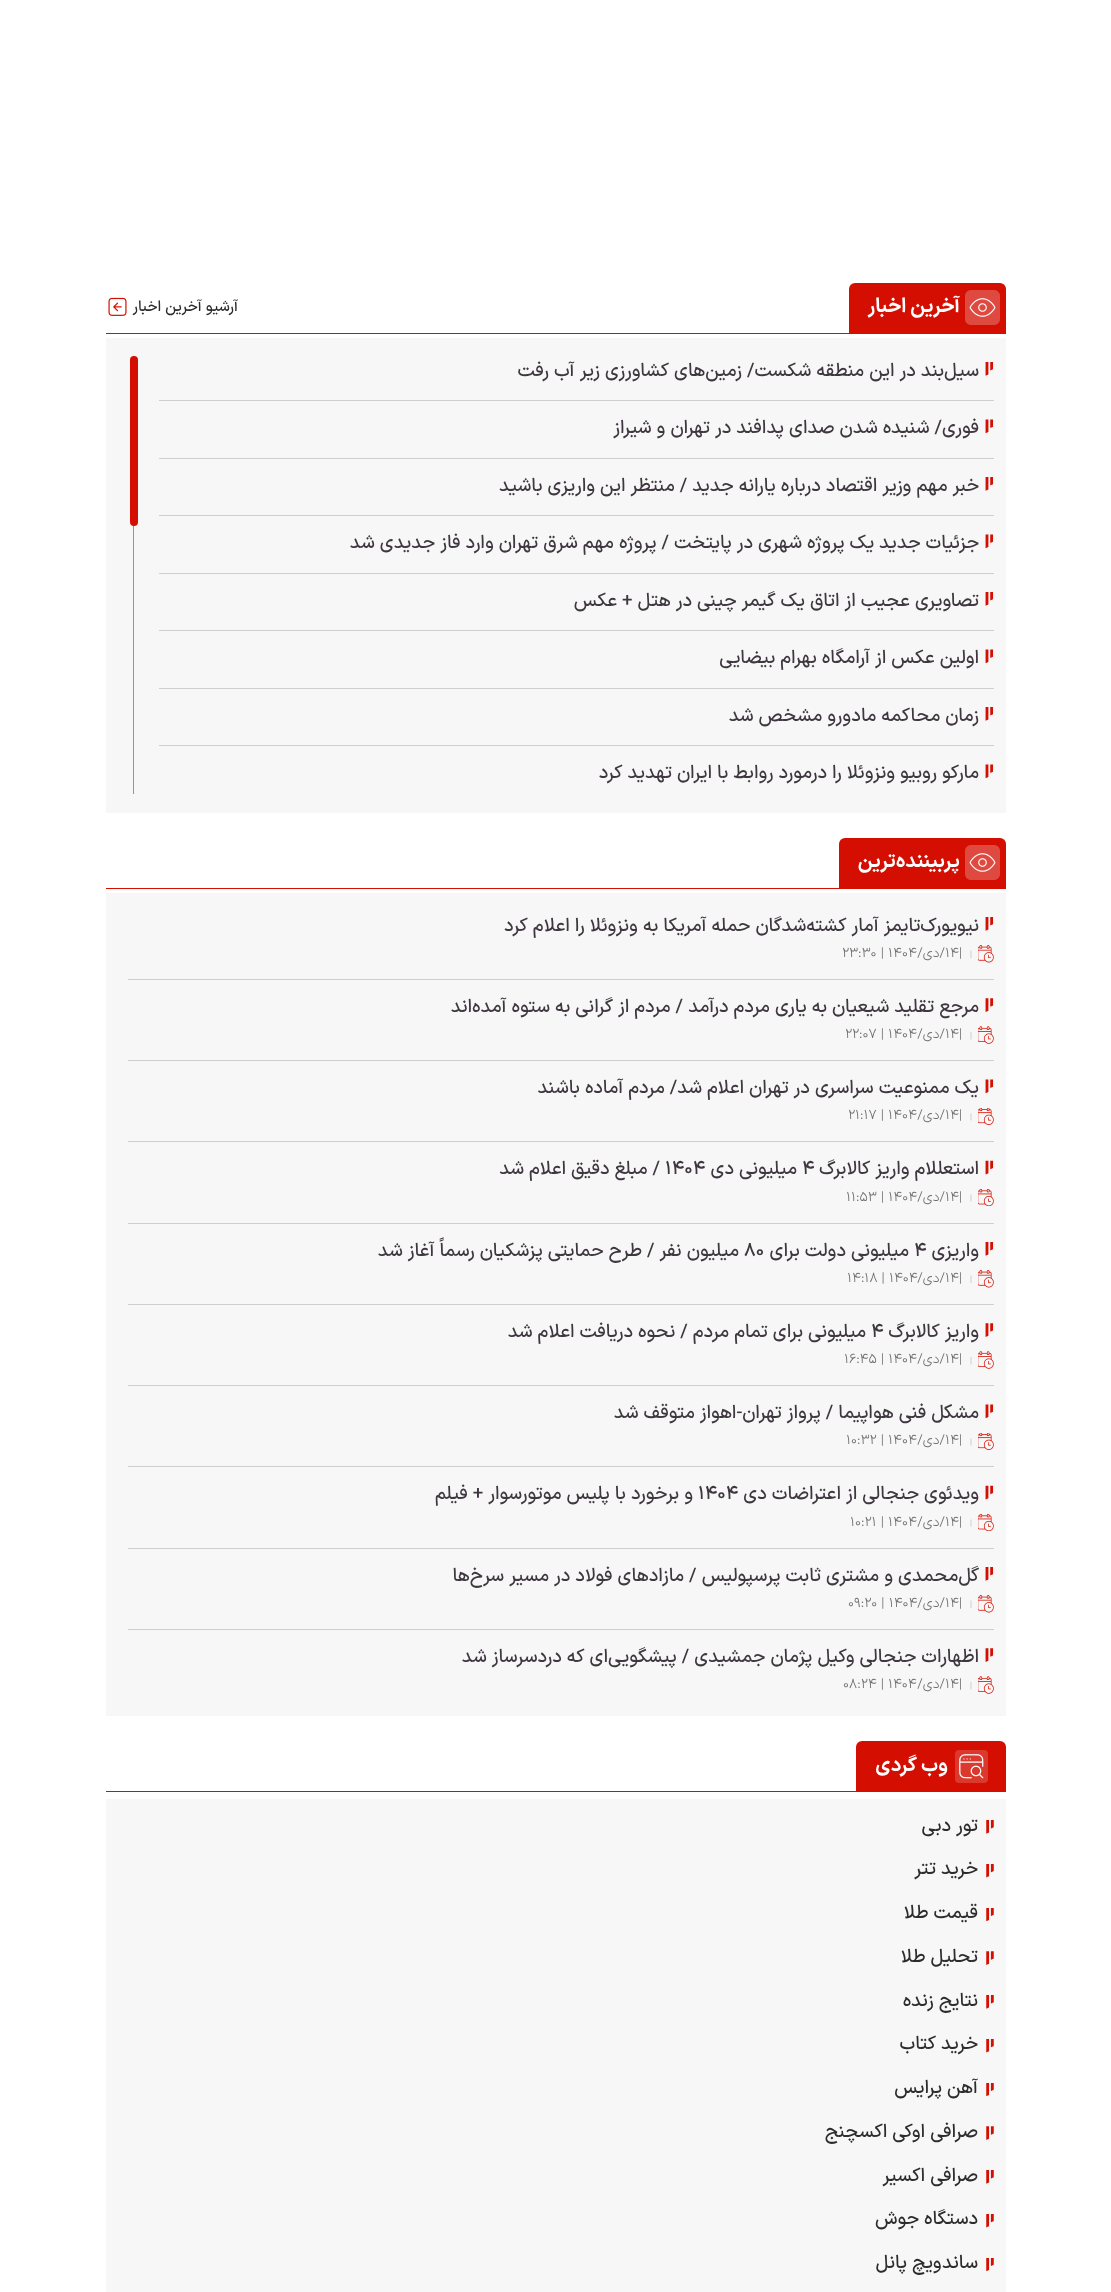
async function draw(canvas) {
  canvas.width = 1111
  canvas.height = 2292
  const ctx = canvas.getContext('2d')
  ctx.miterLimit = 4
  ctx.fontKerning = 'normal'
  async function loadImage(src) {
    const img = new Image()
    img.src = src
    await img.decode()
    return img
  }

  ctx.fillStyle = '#fff'
  ctx.fillRect(0, 0, 1111, 2292)
  ctx.fillStyle = '#d40e00'
  ctx.fillRect(106, 333, 900, 1)
  ctx.beginPath()
  ctx.roundRect(849, 283, 157, 50, [6, 6, 0, 0])
  ctx.fill()
  ctx.drawImage(await loadImage('image0.png'), 965, 290, 35, 35)
  ctx.direction = 'rtl'
  ctx.font = 'bold 20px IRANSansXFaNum'
  ctx.fillStyle = '#fff'
  ctx.fillText('آخرین اخبار', 960, 312)
  ctx.font = '500 15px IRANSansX'
  ctx.fillStyle = '#2d2c2c'
  ctx.fillText('آرشیو آخرین اخبار', 238, 311)
  ctx.drawImage(await loadImage('image1.png'), 108, 297, 19, 19)
  ctx.fillStyle = '#f7f7f7'
  ctx.fillRect(106, 338, 900, 475)
  ctx.fillStyle = '#cfcfcf'
  ctx.fillRect(159, 400, 835, 1)
  ctx.drawImage(await loadImage('image2.png'), 985, 362, 9, 14)
  ctx.font = '500 18.75px IRANSansX'
  ctx.fillStyle = '#3e373f'
  ctx.fillText('سیل‌بند در این منطقه شکست/ زمین‌های کشاورزی زیر آب رفت', 979, 376)
  ctx.fillStyle = '#cfcfcf'
  ctx.fillRect(159, 458, 835, 1)
  ctx.drawImage(await loadImage('image3.png'), 985, 419, 9, 15)
  ctx.fillStyle = '#3e373f'
  ctx.fillText('فوری/ شنیده شدن صدای پدافند در تهران و شیراز', 979, 433)
  ctx.fillStyle = '#cfcfcf'
  ctx.fillRect(159, 515, 835, 1)
  ctx.drawImage(await loadImage('image2.png'), 985, 477, 9, 14)
  ctx.fillStyle = '#3e373f'
  ctx.fillText('خبر مهم وزیر اقتصاد درباره یارانه جدید / منتظر این واریزی باشید', 979, 491)
  ctx.fillStyle = '#cfcfcf'
  ctx.fillRect(159, 573, 835, 1)
  ctx.drawImage(await loadImage('image3.png'), 985, 534, 9, 15)
  ctx.fillStyle = '#3e373f'
  ctx.fillText('جزئیات جدید یک پروژه شهری در پایتخت / پروژه مهم شرق تهران وارد فاز جدیدی شد', 979, 548)
  ctx.fillStyle = '#cfcfcf'
  ctx.fillRect(159, 630, 835, 1)
  ctx.drawImage(await loadImage('image2.png'), 985, 592, 9, 14)
  ctx.fillStyle = '#3e373f'
  ctx.fillText('تصاویری عجیب از اتاق یک گیمر چینی در هتل + عکس', 979, 606)
  ctx.fillStyle = '#cfcfcf'
  ctx.fillRect(159, 688, 835, 1)
  ctx.drawImage(await loadImage('image3.png'), 985, 649, 9, 15)
  ctx.fillStyle = '#3e373f'
  ctx.fillText('اولین عکس از آرامگاه بهرام بیضایی', 979, 663)
  ctx.fillStyle = '#cfcfcf'
  ctx.fillRect(159, 745, 835, 1)
  ctx.drawImage(await loadImage('image2.png'), 985, 707, 9, 14)
  ctx.fillStyle = '#3e373f'
  ctx.fillText('زمان محاکمه مادورو مشخص شد', 979, 721)
  ctx.drawImage(await loadImage('image3.png'), 985, 764, 9, 15)
  ctx.fillText('مارکو روبیو ونزوئلا را درمورد روابط با ایران تهدید کرد', 979, 778)
  ctx.fillStyle = '#949494'
  ctx.fillRect(133, 356, 1, 438)
  ctx.fillStyle = '#d40e00'
  ctx.beginPath()
  ctx.roundRect(130, 356, 8, 170, 4)
  ctx.fill()
  ctx.fillRect(106, 888, 900, 1)
  ctx.beginPath()
  ctx.roundRect(839, 838, 167, 50, [6, 6, 0, 0])
  ctx.fill()
  ctx.drawImage(await loadImage('image0.png'), 965, 845, 35, 35)
  ctx.font = 'bold 20px IRANSansXFaNum'
  ctx.fillStyle = '#fff'
  ctx.fillText('پربیننده‌ترین', 960, 867)
  ctx.fillStyle = '#f7f7f7'
  ctx.fillRect(106, 893, 900, 823)
  ctx.fillStyle = '#cfcfcf'
  ctx.fillRect(128, 979, 866, 1)
  ctx.drawImage(await loadImage('image4.png'), 985, 917, 9, 14)
  ctx.font = '500 18.75px IRANSansX'
  ctx.fillStyle = '#3e373f'
  ctx.fillText('نیویورک‌تایمز آمار کشته‌شدگان حمله آمریکا به ونزوئلا را اعلام کرد', 979, 931)
  ctx.drawImage(await loadImage('image5.png'), 978, 945, 16, 18)
  ctx.beginPath()
  ctx.moveTo(971, 951)
  ctx.lineTo(971, 957.5)
  ctx.strokeStyle = '#b5b5b5'
  ctx.lineWidth = 0.6
  ctx.lineCap = 'square'
  ctx.stroke()
  ctx.direction = 'ltr'
  ctx.font = '300 13.75px IRANSansX'
  ctx.fillStyle = '#707070'
  ctx.fillText('۱۴|', 945, 957)
  ctx.direction = 'rtl'
  ctx.fillText('/دی/', 945, 957)
  ctx.direction = 'ltr'
  ctx.fillText('۲۳:۳۰ | ۱۴۰۴', 842, 957)
  ctx.fillStyle = '#cfcfcf'
  ctx.fillRect(128, 1060, 866, 1)
  ctx.drawImage(await loadImage('image6.png'), 985, 998, 9, 14)
  ctx.direction = 'rtl'
  ctx.font = '500 18.75px IRANSansX'
  ctx.fillStyle = '#3e373f'
  ctx.fillText('مرجع تقلید شیعیان به یاری مردم درآمد / مردم از گرانی به ستوه آمده‌اند', 979, 1012)
  ctx.drawImage(await loadImage('image7.png'), 978, 1026, 16, 18)
  ctx.beginPath()
  ctx.moveTo(971, 1032.5)
  ctx.lineTo(971, 1039)
  ctx.stroke()
  ctx.direction = 'ltr'
  ctx.font = '300 13.75px IRANSansX'
  ctx.fillStyle = '#707070'
  ctx.fillText('۱۴|', 945, 1038)
  ctx.direction = 'rtl'
  ctx.fillText('/دی/', 945, 1038)
  ctx.direction = 'ltr'
  ctx.fillText('۲۲:۰۷ | ۱۴۰۴', 845, 1038)
  ctx.fillStyle = '#cfcfcf'
  ctx.fillRect(128, 1141, 866, 1)
  ctx.drawImage(await loadImage('image8.png'), 985, 1079, 9, 15)
  ctx.direction = 'rtl'
  ctx.font = '500 18.75px IRANSansX'
  ctx.fillStyle = '#3e373f'
  ctx.fillText('یک ممنوعیت سراسری در تهران اعلام شد/ مردم آماده باشند', 979, 1093)
  ctx.drawImage(await loadImage('image9.png'), 978, 1108, 16, 17)
  ctx.beginPath()
  ctx.moveTo(971, 1114)
  ctx.lineTo(971, 1120)
  ctx.stroke()
  ctx.direction = 'ltr'
  ctx.font = '300 13.75px IRANSansX'
  ctx.fillStyle = '#707070'
  ctx.fillText('۱۴|', 945, 1119)
  ctx.direction = 'rtl'
  ctx.fillText('/دی/', 945, 1119)
  ctx.direction = 'ltr'
  ctx.fillText('۲۱:۱۷ | ۱۴۰۴', 848, 1119)
  ctx.fillStyle = '#cfcfcf'
  ctx.fillRect(128, 1223, 866, 1)
  ctx.drawImage(await loadImage('image10.png'), 985, 1160, 9, 15)
  ctx.direction = 'rtl'
  ctx.font = '500 18.75px IRANSansX'
  ctx.fillStyle = '#3e373f'
  ctx.fillText('استعللام واریز کالابرگ', 979, 1174)
  ctx.direction = 'ltr'
  ctx.fillText('۴', 802, 1174)
  ctx.direction = 'rtl'
  ctx.fillText('میلیونی دی', 797, 1174)
  ctx.direction = 'ltr'
  ctx.fillText('۱۴۰۴', 665, 1174)
  ctx.direction = 'rtl'
  ctx.fillText('/ مبلغ دقیق اعلام شد', 660, 1174)
  ctx.drawImage(await loadImage('image11.png'), 978, 1189, 16, 17)
  ctx.beginPath()
  ctx.moveTo(971, 1195)
  ctx.lineTo(971, 1201)
  ctx.stroke()
  ctx.direction = 'ltr'
  ctx.font = '300 13.75px IRANSansX'
  ctx.fillStyle = '#707070'
  ctx.fillText('۱۴|', 945, 1201)
  ctx.direction = 'rtl'
  ctx.fillText('/دی/', 945, 1201)
  ctx.direction = 'ltr'
  ctx.fillText('۱۱:۵۳ | ۱۴۰۴', 846, 1201)
  ctx.fillStyle = '#cfcfcf'
  ctx.fillRect(128, 1304, 866, 1)
  ctx.drawImage(await loadImage('image4.png'), 985, 1242, 9, 14)
  ctx.direction = 'rtl'
  ctx.font = '500 18.75px IRANSansX'
  ctx.fillStyle = '#3e373f'
  ctx.fillText('واریزی', 979, 1256)
  ctx.direction = 'ltr'
  ctx.fillText('۴', 914, 1256)
  ctx.direction = 'rtl'
  ctx.fillText('میلیونی دولت برای', 909, 1256)
  ctx.direction = 'ltr'
  ctx.fillText('۸۰', 744, 1256)
  ctx.direction = 'rtl'
  ctx.fillText('میلیون نفر / طرح حمایتی پزشکیان رسماً آغاز شد', 739, 1256)
  ctx.drawImage(await loadImage('image5.png'), 978, 1270, 16, 18)
  ctx.beginPath()
  ctx.moveTo(971, 1276)
  ctx.lineTo(971, 1282.5)
  ctx.stroke()
  ctx.direction = 'ltr'
  ctx.font = '300 13.75px IRANSansX'
  ctx.fillStyle = '#707070'
  ctx.fillText('۱۴|', 945, 1282)
  ctx.direction = 'rtl'
  ctx.fillText('/دی/', 945, 1282)
  ctx.direction = 'ltr'
  ctx.fillText('۱۴:۱۸ | ۱۴۰۴', 847, 1282)
  ctx.fillStyle = '#cfcfcf'
  ctx.fillRect(128, 1385, 866, 1)
  ctx.drawImage(await loadImage('image6.png'), 985, 1323, 9, 14)
  ctx.direction = 'rtl'
  ctx.font = '500 18.75px IRANSansX'
  ctx.fillStyle = '#3e373f'
  ctx.fillText('واریز کالابرگ', 979, 1337)
  ctx.direction = 'ltr'
  ctx.fillText('۴', 871, 1337)
  ctx.direction = 'rtl'
  ctx.fillText('میلیونی برای تمام مردم / نحوه دریافت اعلام شد', 866, 1337)
  ctx.drawImage(await loadImage('image7.png'), 978, 1351, 16, 18)
  ctx.beginPath()
  ctx.moveTo(971, 1357.5)
  ctx.lineTo(971, 1364)
  ctx.stroke()
  ctx.direction = 'ltr'
  ctx.font = '300 13.75px IRANSansX'
  ctx.fillStyle = '#707070'
  ctx.fillText('۱۴|', 945, 1363)
  ctx.direction = 'rtl'
  ctx.fillText('/دی/', 945, 1363)
  ctx.direction = 'ltr'
  ctx.fillText('۱۶:۴۵ | ۱۴۰۴', 844, 1363)
  ctx.fillStyle = '#cfcfcf'
  ctx.fillRect(128, 1466, 866, 1)
  ctx.drawImage(await loadImage('image8.png'), 985, 1404, 9, 15)
  ctx.direction = 'rtl'
  ctx.font = '500 18.75px IRANSansX'
  ctx.fillStyle = '#3e373f'
  ctx.fillText('مشکل فنی هواپیما / پرواز تهران-اهواز متوقف شد', 979, 1418)
  ctx.drawImage(await loadImage('image9.png'), 978, 1433, 16, 17)
  ctx.beginPath()
  ctx.moveTo(971, 1439)
  ctx.lineTo(971, 1445)
  ctx.stroke()
  ctx.direction = 'ltr'
  ctx.font = '300 13.75px IRANSansX'
  ctx.fillStyle = '#707070'
  ctx.fillText('۱۴|', 945, 1444)
  ctx.direction = 'rtl'
  ctx.fillText('/دی/', 945, 1444)
  ctx.direction = 'ltr'
  ctx.fillText('۱۰:۳۲ | ۱۴۰۴', 846, 1444)
  ctx.fillStyle = '#cfcfcf'
  ctx.fillRect(128, 1548, 866, 1)
  ctx.drawImage(await loadImage('image10.png'), 985, 1485, 9, 15)
  ctx.direction = 'rtl'
  ctx.font = '500 18.75px IRANSansX'
  ctx.fillStyle = '#3e373f'
  ctx.fillText('ویدئوی جنجالی از اعتراضات دی', 979, 1499)
  ctx.direction = 'ltr'
  ctx.fillText('۱۴۰۴', 698, 1499)
  ctx.direction = 'rtl'
  ctx.fillText('و برخورد با پلیس موتورسوار + فیلم', 693, 1499)
  ctx.drawImage(await loadImage('image11.png'), 978, 1514, 16, 17)
  ctx.beginPath()
  ctx.moveTo(971, 1520)
  ctx.lineTo(971, 1526)
  ctx.stroke()
  ctx.direction = 'ltr'
  ctx.font = '300 13.75px IRANSansX'
  ctx.fillStyle = '#707070'
  ctx.fillText('۱۴|', 945, 1526)
  ctx.direction = 'rtl'
  ctx.fillText('/دی/', 945, 1526)
  ctx.direction = 'ltr'
  ctx.fillText('۱۰:۲۱ | ۱۴۰۴', 850, 1526)
  ctx.fillStyle = '#cfcfcf'
  ctx.fillRect(128, 1629, 866, 1)
  ctx.drawImage(await loadImage('image4.png'), 985, 1567, 9, 14)
  ctx.direction = 'rtl'
  ctx.font = '500 18.75px IRANSansX'
  ctx.fillStyle = '#3e373f'
  ctx.fillText('گل‌محمدی و مشتری ثابت پرسپولیس / مازادهای فولاد در مسیر سرخ‌ها', 979, 1581)
  ctx.drawImage(await loadImage('image5.png'), 978, 1595, 16, 18)
  ctx.beginPath()
  ctx.moveTo(971, 1601)
  ctx.lineTo(971, 1607.5)
  ctx.stroke()
  ctx.direction = 'ltr'
  ctx.font = '300 13.75px IRANSansX'
  ctx.fillStyle = '#707070'
  ctx.fillText('۱۴|', 945, 1607)
  ctx.direction = 'rtl'
  ctx.fillText('/دی/', 945, 1607)
  ctx.direction = 'ltr'
  ctx.fillText('۰۹:۲۰ | ۱۴۰۴', 848, 1607)
  ctx.drawImage(await loadImage('image6.png'), 985, 1648, 9, 14)
  ctx.direction = 'rtl'
  ctx.font = '500 18.75px IRANSansX'
  ctx.fillStyle = '#3e373f'
  ctx.fillText('اظهارات جنجالی وکیل پژمان جمشیدی / پیشگویی‌ای که دردسرساز شد', 979, 1662)
  ctx.drawImage(await loadImage('image7.png'), 978, 1676, 16, 18)
  ctx.beginPath()
  ctx.moveTo(971, 1682.5)
  ctx.lineTo(971, 1689)
  ctx.stroke()
  ctx.direction = 'ltr'
  ctx.font = '300 13.75px IRANSansX'
  ctx.fillStyle = '#707070'
  ctx.fillText('۱۴|', 945, 1688)
  ctx.direction = 'rtl'
  ctx.fillText('/دی/', 945, 1688)
  ctx.direction = 'ltr'
  ctx.fillText('۰۸:۲۴ | ۱۴۰۴', 843, 1688)
  ctx.fillStyle = '#d40e00'
  ctx.fillRect(106, 1791, 900, 1)
  ctx.beginPath()
  ctx.roundRect(856, 1741, 150, 50, [6, 6, 0, 0])
  ctx.fill()
  ctx.fillStyle = '#dc392e'
  ctx.beginPath()
  ctx.roundRect(955, 1750, 33, 33, 4)
  ctx.fill()
  ctx.drawImage(await loadImage('image12.png'), 959, 1754, 25, 25)
  ctx.direction = 'rtl'
  ctx.font = 'bold 20px IRANSansXFaNum'
  ctx.fillStyle = '#fff'
  ctx.fillText('وب گردی', 948, 1771)
  ctx.fillStyle = '#f7f7f7'
  ctx.fillRect(106, 1799, 900, 493)
  ctx.drawImage(await loadImage('image13.png'), 986, 1820, 8, 14)
  ctx.font = '500 18.75px IRANSansX'
  ctx.fillStyle = '#2d2c2c'
  ctx.fillText('تور دبی', 978, 1831)
  ctx.drawImage(await loadImage('image14.png'), 986, 1864, 8, 14)
  ctx.fillText('خرید تتر', 978, 1874)
  ctx.drawImage(await loadImage('image15.png'), 986, 1908, 8, 13)
  ctx.fillText('قیمت طلا', 978, 1918)
  ctx.drawImage(await loadImage('image16.png'), 986, 1951, 8, 14)
  ctx.fillText('تحلیل طلا', 978, 1962)
  ctx.drawImage(await loadImage('image13.png'), 986, 1995, 8, 14)
  ctx.fillText('نتایج زنده', 978, 2006)
  ctx.drawImage(await loadImage('image14.png'), 986, 2039, 8, 14)
  ctx.fillText('خرید کتاب', 978, 2049)
  ctx.drawImage(await loadImage('image15.png'), 986, 2083, 8, 13)
  ctx.fillText('آهن پرایس', 978, 2093)
  ctx.drawImage(await loadImage('image16.png'), 986, 2126, 8, 14)
  ctx.fillText('صرافی اوکی اکسچنج', 978, 2137)
  ctx.drawImage(await loadImage('image13.png'), 986, 2170, 8, 14)
  ctx.fillText('صرافی اکسیر', 978, 2181)
  ctx.drawImage(await loadImage('image14.png'), 986, 2214, 8, 14)
  ctx.fillText('دستگاه جوش', 978, 2224)
  ctx.drawImage(await loadImage('image15.png'), 986, 2258, 8, 13)
  ctx.fillText('ساندویچ پانل', 978, 2268)
}

draw(document.querySelector('canvas'))
